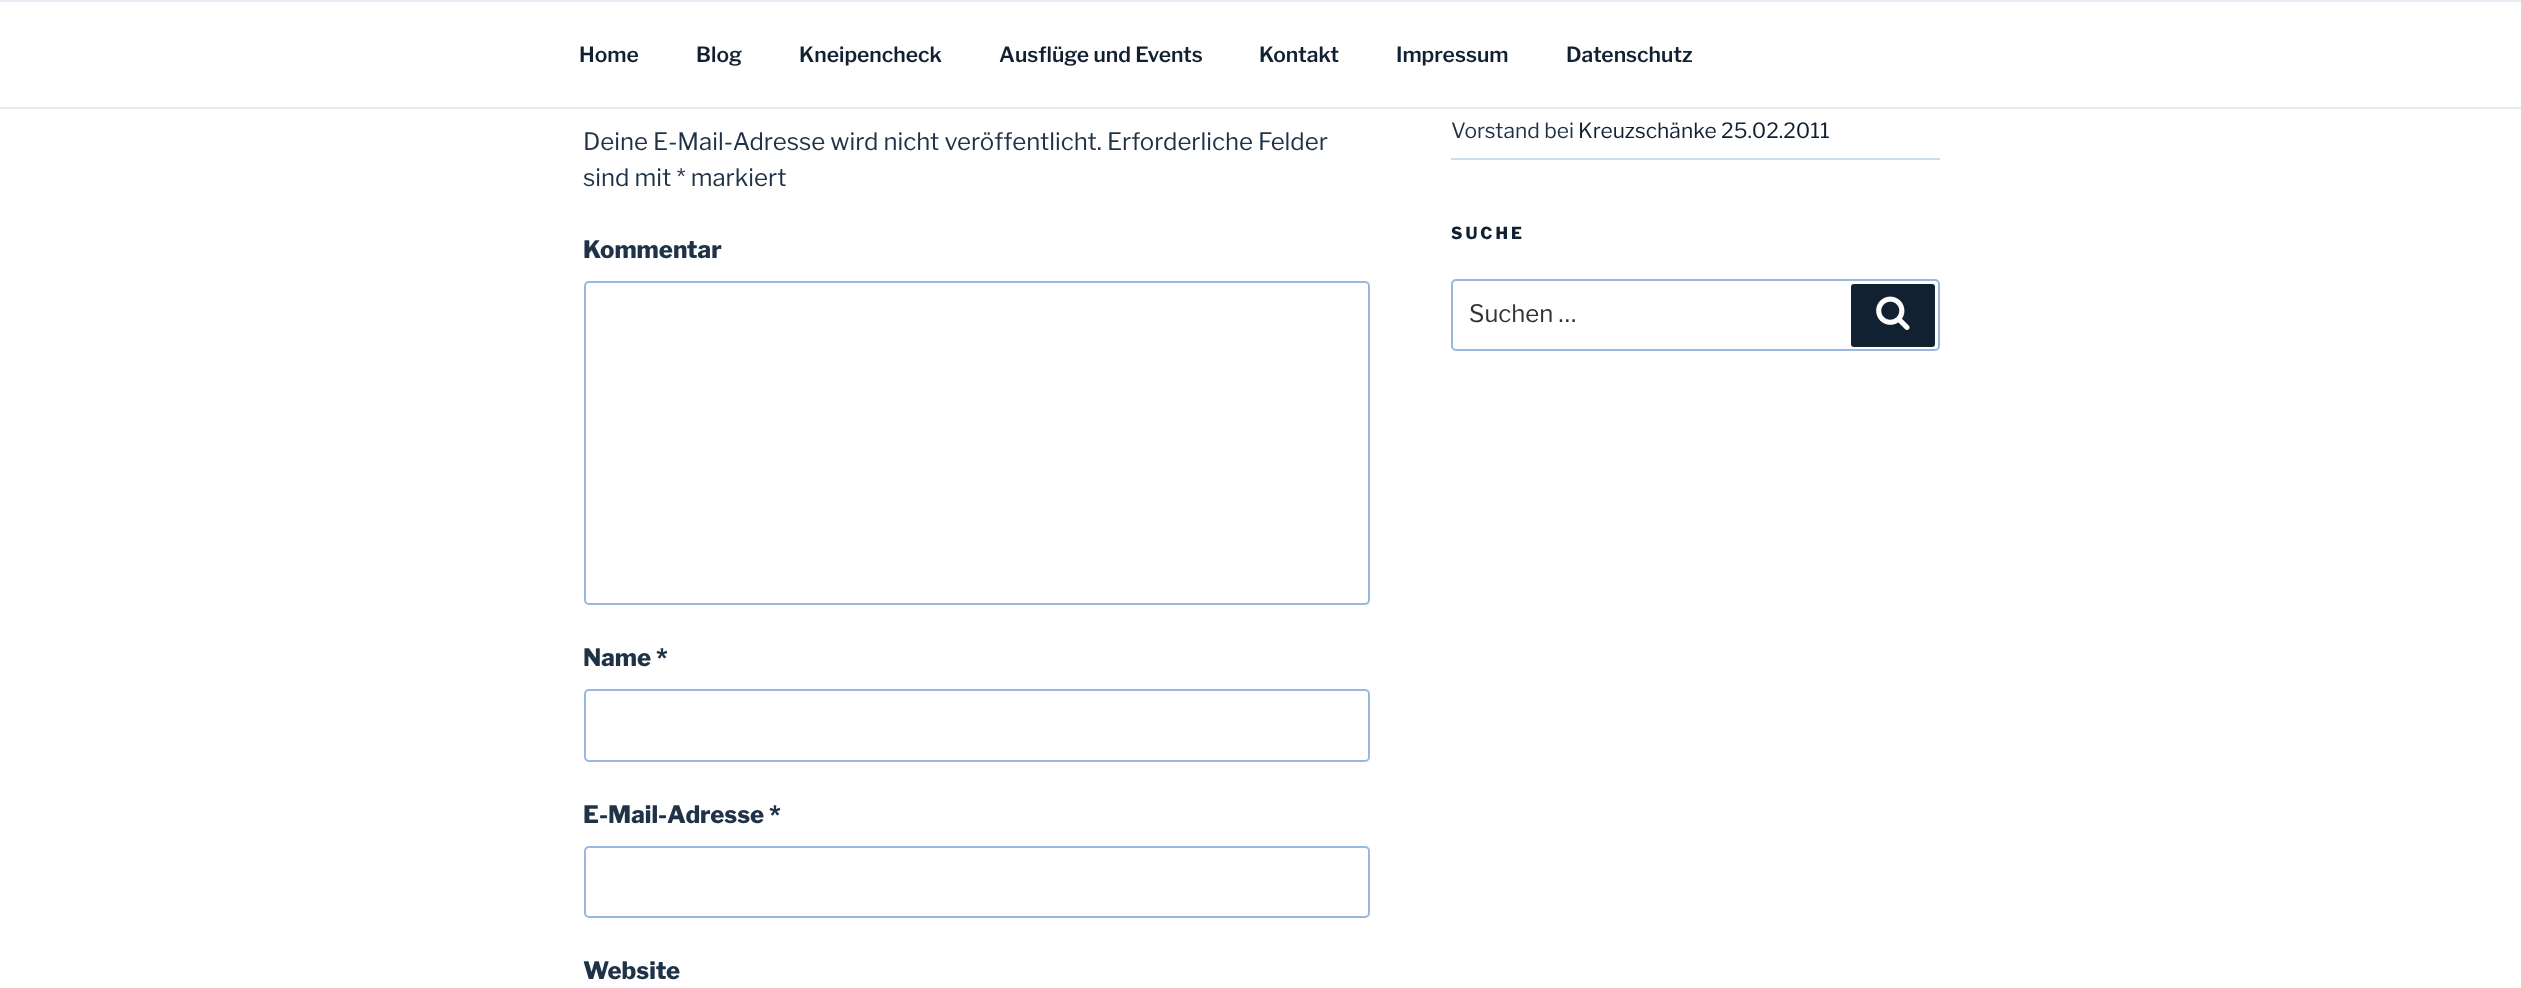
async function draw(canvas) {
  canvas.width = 2521
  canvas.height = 988
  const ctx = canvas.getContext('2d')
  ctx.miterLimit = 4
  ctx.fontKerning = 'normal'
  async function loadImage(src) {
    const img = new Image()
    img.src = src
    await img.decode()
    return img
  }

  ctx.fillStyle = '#fff'
  ctx.fillRect(0, 0, 2521, 988)
  ctx.fillStyle = '#e4edf6'
  ctx.fillRect(0, 0, 2521, 2)
  ctx.fillRect(0, 107, 2521, 2)
  ctx.font = '600 21px Libre Franklin'
  ctx.fillStyle = '#112132'
  ctx.fillText('Home', 579, 62)
  ctx.fillText('Blog', 696, 62)
  ctx.fillText('Kneipencheck', 799, 62)
  ctx.fillText('Ausflüge und Events', 999, 62)
  ctx.fillText('Kontakt', 1259, 62)
  ctx.fillText('Impressum', 1396, 62)
  ctx.fillText('Datenschutz', 1566, 62)
  ctx.font = '24px Libre Franklin'
  ctx.fillStyle = '#1f3247'
  ctx.fillText('Deine E-Mail-Adresse wird nicht veröffentlicht. Erforderliche Felder', 583, 150)
  ctx.fillText('sind mit * markiert', 583, 186)
  ctx.font = '800 24px Libre Franklin'
  ctx.fillText('Kommentar', 583, 258)
  ctx.beginPath()
  ctx.roundRect(585, 282, 784, 322, 4)
  ctx.strokeStyle = '#98b9dd'
  ctx.lineWidth = 2
  ctx.stroke()
  ctx.fillText('Name *', 583, 666)
  ctx.beginPath()
  ctx.roundRect(585, 690, 784, 71, 4)
  ctx.stroke()
  ctx.fillText('E-Mail-Adresse *', 583, 823)
  ctx.beginPath()
  ctx.roundRect(585, 847, 784, 70, 4)
  ctx.stroke()
  ctx.fillText('Website', 583, 979)
  ctx.fillStyle = '#cdddee'
  ctx.fillRect(1451, 158, 489, 2)
  ctx.font = '21px Libre Franklin'
  ctx.fillStyle = '#1f3247'
  ctx.fillText('Vorstand bei', 1451, 138)
  ctx.fillStyle = '#112132'
  ctx.fillText('Kreuzschänke 25.02.2011', 1578, 138)
  ctx.letterSpacing = '3px'
  ctx.font = '800 16.5px Libre Franklin'
  ctx.fillText('SUCHE', 1451, 239)
  ctx.beginPath()
  ctx.roundRect(1452, 280, 487, 70, 4)
  ctx.stroke()
  ctx.letterSpacing = '0px'
  ctx.font = '24px Libre Franklin'
  ctx.fillStyle = '#333'
  ctx.fillText('Suchen …', 1469, 322)
  ctx.fillStyle = '#112132'
  ctx.beginPath()
  ctx.roundRect(1851, 284, 84, 63, 3)
  ctx.fill()
  ctx.drawImage(await loadImage('image0.png'), 1876, 296, 34, 34)
}

draw(document.querySelector('canvas'))
